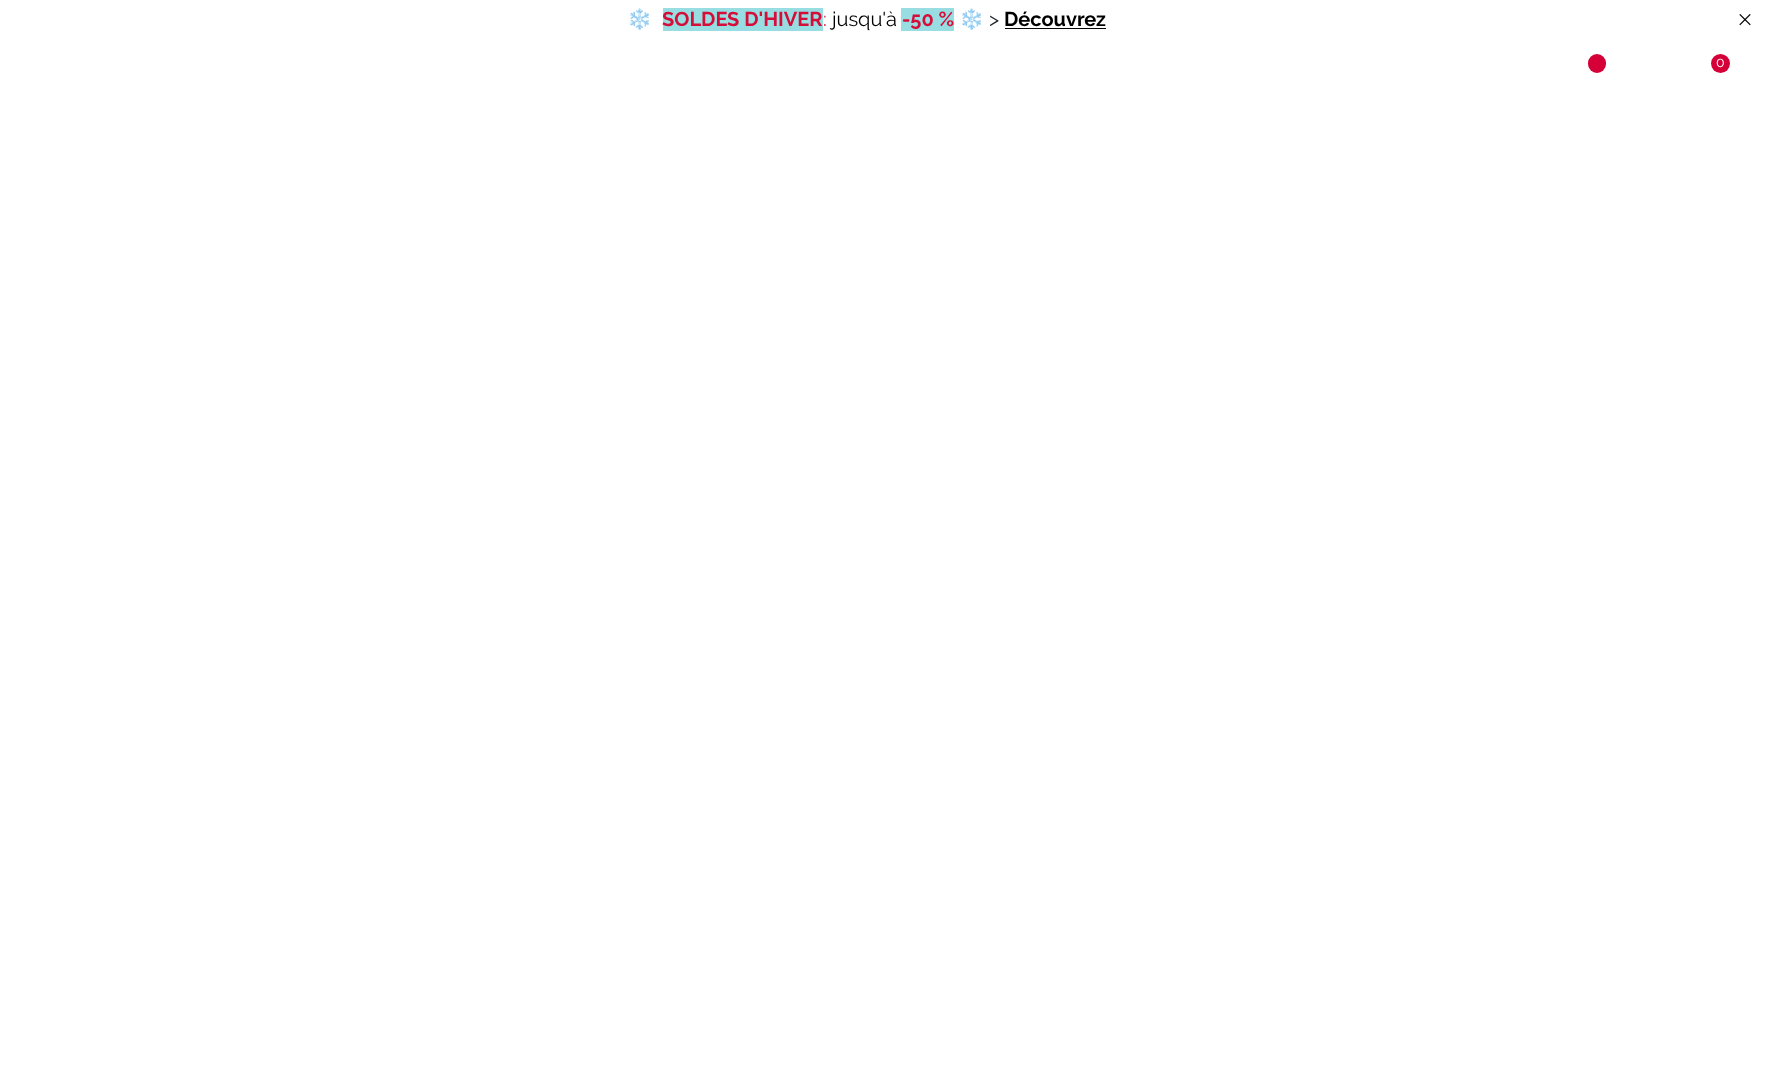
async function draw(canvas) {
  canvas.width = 1771
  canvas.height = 1087
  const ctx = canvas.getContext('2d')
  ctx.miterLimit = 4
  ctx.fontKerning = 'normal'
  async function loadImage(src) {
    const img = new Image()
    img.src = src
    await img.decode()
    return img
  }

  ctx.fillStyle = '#fff'
  ctx.fillRect(0, 0, 1771, 1087)
  ctx.font = '20px Noto Color Emoji'
  ctx.fillStyle = '#d50037'
  ctx.fillText('❄️', 627, 26)
  ctx.fillStyle = '#97dde2'
  ctx.fillRect(663, 8, 160, 23)
  ctx.font = 'bold 20px Raleway'
  ctx.fillStyle = '#d50e39'
  ctx.fillText('SOLDES D\'HIVER', 662, 26)
  ctx.font = '20px Raleway'
  ctx.fillStyle = '#d50037'
  ctx.fillText(':', 823, 26)
  ctx.fillStyle = '#000'
  ctx.fillText('jusqu\'à', 832, 26)
  ctx.fillStyle = '#97dde2'
  ctx.fillRect(901, 8, 53, 23)
  ctx.font = 'bold 20px Raleway'
  ctx.fillStyle = '#d50e39'
  ctx.fillText('-50 %', 902, 26)
  ctx.font = 'bold 20px Noto Color Emoji'
  ctx.fillStyle = '#d50037'
  ctx.fillText('❄️', 959, 26)
  ctx.font = '20px Raleway'
  ctx.fillStyle = '#212529'
  ctx.fillText('>', 989, 26)
  ctx.font = 'bold 20px Raleway'
  ctx.fillStyle = '#000'
  ctx.fillText('Découvrez', 1004, 26)
  ctx.fillStyle = '#050504'
  ctx.fillRect(1005, 28, 101, 1)
  ctx.drawImage(await loadImage('image0.png'), 1739, 14, 12, 12)
  ctx.fillStyle = '#d50037'
  ctx.beginPath()
  ctx.roundRect(1588, 54, 18, 19, 9)
  ctx.fill()
  ctx.beginPath()
  ctx.arc(1720.5, 63.5, 9.5, 0, 2 * Math.PI)
  ctx.fill()
  ctx.font = '14px Raleway'
  ctx.fillStyle = '#fff'
  ctx.fillText('0', 1716, 67)
}

draw(document.querySelector('canvas'))
